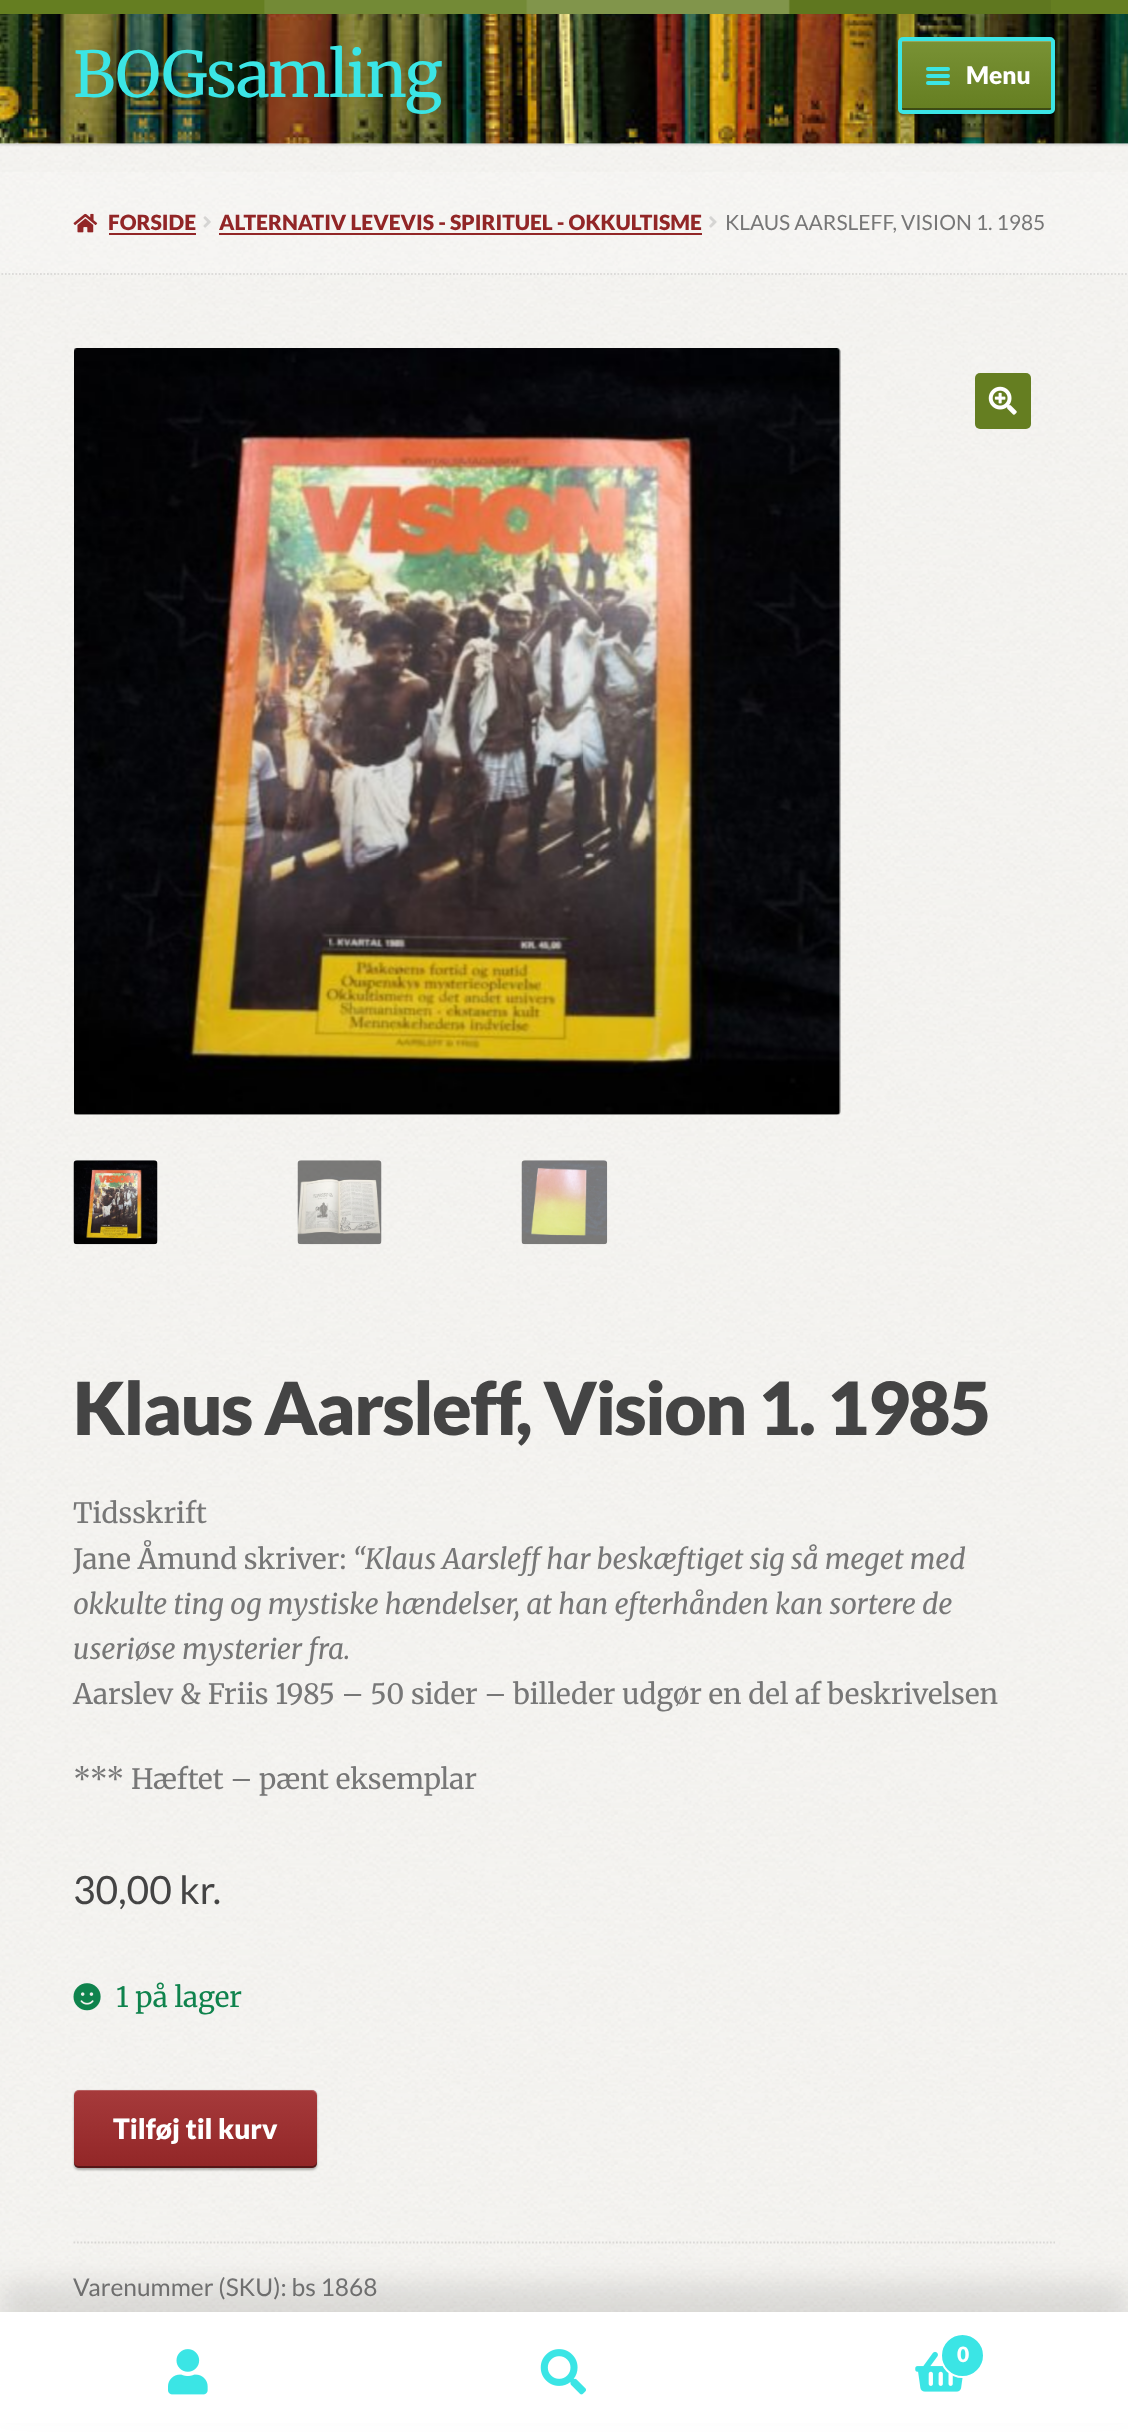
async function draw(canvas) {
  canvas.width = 1128
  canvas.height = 2432
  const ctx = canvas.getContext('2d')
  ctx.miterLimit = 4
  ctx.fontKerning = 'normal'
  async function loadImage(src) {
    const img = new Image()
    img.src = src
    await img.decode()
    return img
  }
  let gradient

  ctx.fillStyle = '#fff'
  ctx.fillRect(0, 0, 1128, 2432)
  ctx.drawImage(await loadImage('image0.png'), 0, 144, 1128, 2168)
  ctx.fillStyle = '#00000026'
  ctx.filter = 'blur(1px)'
  ctx.beginPath()
  ctx.rect(0, 2, 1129, 143)
  ctx.fill()
  ctx.filter = 'none'
  ctx.fillStyle = '#fff'
  ctx.fillRect(0, 143, 1128, 1)
  ctx.drawImage(await loadImage('image1.png'), 0, 14, 1128, 130)
  ctx.fillStyle = '#657e21'
  ctx.fillRect(0, 0, 1128, 14)
  ctx.drawImage(await loadImage('image2.png'), 264, 0, 787, 14)
  ctx.letterSpacing = '-1.75px'
  ctx.font = '63px Merriweather'
  ctx.fillStyle = '#3be5e5'
  ctx.fillText('BOGsamling', 73, 97)
  ctx.fillStyle = '#0000004d'
  ctx.filter = 'blur(1px)'
  ctx.beginPath()
  ctx.roundRect(898, 39, 157, 77, 5)
  ctx.fill()
  ctx.filter = 'none'
  gradient = ctx.createLinearGradient(977, 40, 977, 110)
  gradient.addColorStop(0, '#799235')
  gradient.addColorStop(1, '#657e21')
  ctx.fillStyle = gradient
  ctx.fillRect(898, 40, 157, 70)
  ctx.fillStyle = '#94a85d'
  ctx.beginPath()
  ctx.moveTo(903, 42)
  ctx.lineTo(1050, 42)
  ctx.bezierCurveTo(1051, 42, 1052, 43, 1052, 44)
  ctx.bezierCurveTo(1052, 42, 1052, 40, 1050, 40)
  ctx.lineTo(902, 40)
  ctx.bezierCurveTo(901, 41, 901, 43, 901, 44)
  ctx.bezierCurveTo(901, 43, 902, 42, 903, 42)
  ctx.closePath()
  ctx.fill()
  ctx.fillStyle = '#00000066'
  ctx.beginPath()
  ctx.moveTo(901, 107)
  ctx.bezierCurveTo(901, 116, 925, 110, 928, 110)
  ctx.lineTo(1051, 110)
  ctx.bezierCurveTo(1052, 109, 1052, 108, 1052, 107)
  ctx.bezierCurveTo(1052, 108, 1051, 108, 1050, 108)
  ctx.lineTo(903, 108)
  ctx.bezierCurveTo(902, 108, 901, 108, 901, 107)
  ctx.closePath()
  ctx.fill()
  ctx.beginPath()
  ctx.roundRect(900, 39, 153, 73, 3)
  ctx.strokeStyle = '#3be5e5'
  ctx.lineWidth = 4
  ctx.stroke()
  ctx.fillStyle = '#3be5e5'
  ctx.beginPath()
  ctx.roundRect(926, 67, 24, 4, 2)
  ctx.fill()
  ctx.beginPath()
  ctx.roundRect(926, 74, 24, 4, 2)
  ctx.fill()
  ctx.letterSpacing = '0px'
  ctx.font = '900 24.5px Lato'
  ctx.fillStyle = '#fff'
  ctx.fillText('Menu', 966, 84)
  ctx.fillStyle = '#3be5e5'
  ctx.beginPath()
  ctx.roundRect(926, 81, 24, 4, 2)
  ctx.fill()
  ctx.fillStyle = '#ffffff33'
  ctx.fillRect(0, 172, 1128, 103)
  ctx.beginPath()
  ctx.moveTo(-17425, 274)
  ctx.lineTo(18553.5, 274)
  ctx.strokeStyle = '#0000001a'
  ctx.lineWidth = 1.8
  ctx.setLineDash([1.75, 1.75])
  ctx.stroke()
  ctx.drawImage(await loadImage('image3.png'), 73, 213, 25, 20)
  ctx.font = '900 21px Lato'
  ctx.fillStyle = '#922627'
  ctx.fillText('FORSIDE', 108, 230)
  ctx.fillRect(109, 233, 87, 2)
  ctx.drawImage(await loadImage('image4.png'), 203, 216, 8, 12)
  ctx.fillText('ALTERNATIV LEVEVIS - SPIRITUEL - OKKULTISME', 219, 230)
  ctx.fillRect(219, 233, 483, 2)
  ctx.drawImage(await loadImage('image5.png'), 709, 216, 8, 12)
  ctx.font = '21px Lato'
  ctx.fillStyle = '#777'
  ctx.fillText('KLAUS AARSLEFF, VISION 1. 1985', 725, 230)
  ctx.drawImage(await loadImage('image6.png'), 74, 348, 767, 767)
  ctx.fillStyle = '#657e21'
  ctx.beginPath()
  ctx.roundRect(975, 373, 56, 56, 5)
  ctx.fill()
  ctx.drawImage(await loadImage('image7.png'), 988, 386, 29, 29)
  ctx.drawImage(await loadImage('image8.png'), 73, 1160, 85, 85)
  ctx.drawImage(await loadImage('image9.png'), 297, 1160, 85, 85)
  ctx.drawImage(await loadImage('image10.png'), 521, 1160, 87, 85)
  ctx.letterSpacing = '-1.75px'
  ctx.font = '900 73.25px Lato'
  ctx.fillStyle = '#444'
  ctx.fillText('Klaus Aarsleff, Vision 1. 1985', 73, 1435)
  ctx.letterSpacing = '0px'
  ctx.font = '28px Merriweather'
  ctx.fillStyle = '#777'
  ctx.fillText('Tidsskrift', 73, 1523)
  ctx.fillText('Jane Åmund skriver:', 73, 1569)
  ctx.font = 'italic 300 28px Merriweather'
  ctx.fillText('“Klaus Aarsleff har beskæftiget sig så meget med', 353, 1569)
  ctx.fillText('okkulte ting og mystiske hændelser, at han efterhånden kan sortere de', 73, 1614)
  ctx.fillText('useriøse mysterier fra.', 73, 1659)
  ctx.font = '28px Merriweather'
  ctx.fillText('Aarslev & Friis 1985 – 50 sider – billeder udgør en del af beskrivelsen', 73, 1704)
  ctx.fillText('*** Hæftet – pænt eksemplar', 73, 1789)
  ctx.font = '39px Lato'
  ctx.fillStyle = '#444'
  ctx.fillText('30,00 kr.', 73, 1904)
  ctx.drawImage(await loadImage('image11.png'), 73, 1983, 28, 28)
  ctx.font = '28px Merriweather'
  ctx.fillStyle = '#0f834d'
  ctx.fillText('1 på lager', 116, 2007)
  ctx.fillStyle = '#0000004d'
  ctx.filter = 'blur(1px)'
  ctx.beginPath()
  ctx.roundRect(74, 2091, 243, 79, 5)
  ctx.fill()
  ctx.filter = 'none'
  gradient = ctx.createLinearGradient(195, 2090, 195, 2168)
  gradient.addColorStop(0, '#a63a3b')
  gradient.addColorStop(1, '#922627')
  ctx.fillStyle = gradient
  ctx.beginPath()
  ctx.roundRect(74, 2090, 243, 78, 5)
  ctx.fill()
  ctx.fillStyle = '#ffffff33'
  ctx.beginPath()
  ctx.moveTo(79, 2091)
  ctx.lineTo(312, 2091)
  ctx.bezierCurveTo(314, 2091, 317, 2094, 317, 2096)
  ctx.lineTo(317, 2095)
  ctx.bezierCurveTo(317, 2092, 315, 2090, 312, 2090)
  ctx.lineTo(79, 2090)
  ctx.bezierCurveTo(76, 2090, 74, 2092, 74, 2095)
  ctx.lineTo(74, 2096)
  ctx.bezierCurveTo(74, 2094, 76, 2091, 79, 2091)
  ctx.closePath()
  ctx.fill()
  ctx.fillStyle = '#00000066'
  ctx.beginPath()
  ctx.moveTo(74, 2161)
  ctx.bezierCurveTo(74, 2164, 74, 2167, 78, 2168)
  ctx.lineTo(313, 2168)
  ctx.bezierCurveTo(317, 2167, 317, 2164, 317, 2161)
  ctx.bezierCurveTo(317, 2164, 314, 2166, 312, 2166)
  ctx.lineTo(79, 2166)
  ctx.bezierCurveTo(76, 2166, 74, 2164, 74, 2161)
  ctx.closePath()
  ctx.fill()
  ctx.font = '900 28px Lato'
  ctx.fillStyle = '#fff'
  ctx.fillText('Tilføj til kurv', 113, 2139)
  ctx.beginPath()
  ctx.moveTo(73.5, 2242.5)
  ctx.lineTo(1055, 2242.5)
  ctx.stroke()
  ctx.font = '24.5px Lato'
  ctx.fillStyle = '#777'
  ctx.fillText('Varenummer (SKU): bs 1868', 73, 2296)
  ctx.fillStyle = '#0000001a'
  ctx.filter = 'blur(14px)'
  ctx.beginPath()
  ctx.rect(0, 2284, 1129, 121)
  ctx.fill()
  ctx.filter = 'none'
  ctx.fillStyle = '#fff'
  ctx.fillRect(0, 2312, 1128, 2)
  ctx.fillRect(0, 2314, 1128, 109)
  ctx.drawImage(await loadImage('image12.png'), 168, 2349, 40, 46)
  ctx.drawImage(await loadImage('image13.png'), 540, 2349, 46, 46)
  ctx.drawImage(await loadImage('image14.png'), 915, 2351, 48, 41)
  ctx.fillStyle = '#3be5e5'
  ctx.beginPath()
  ctx.arc(962.5, 2355.5, 21.5, 0, 2 * Math.PI)
  ctx.fill()
  ctx.strokeStyle = '#fff'
  ctx.lineWidth = 2
  ctx.setLineDash([])
  ctx.stroke()
  ctx.font = '900 21px Lato'
  ctx.fillStyle = '#fff'
  ctx.fillText('0', 957, 2362)
}

draw(document.querySelector('canvas'))
